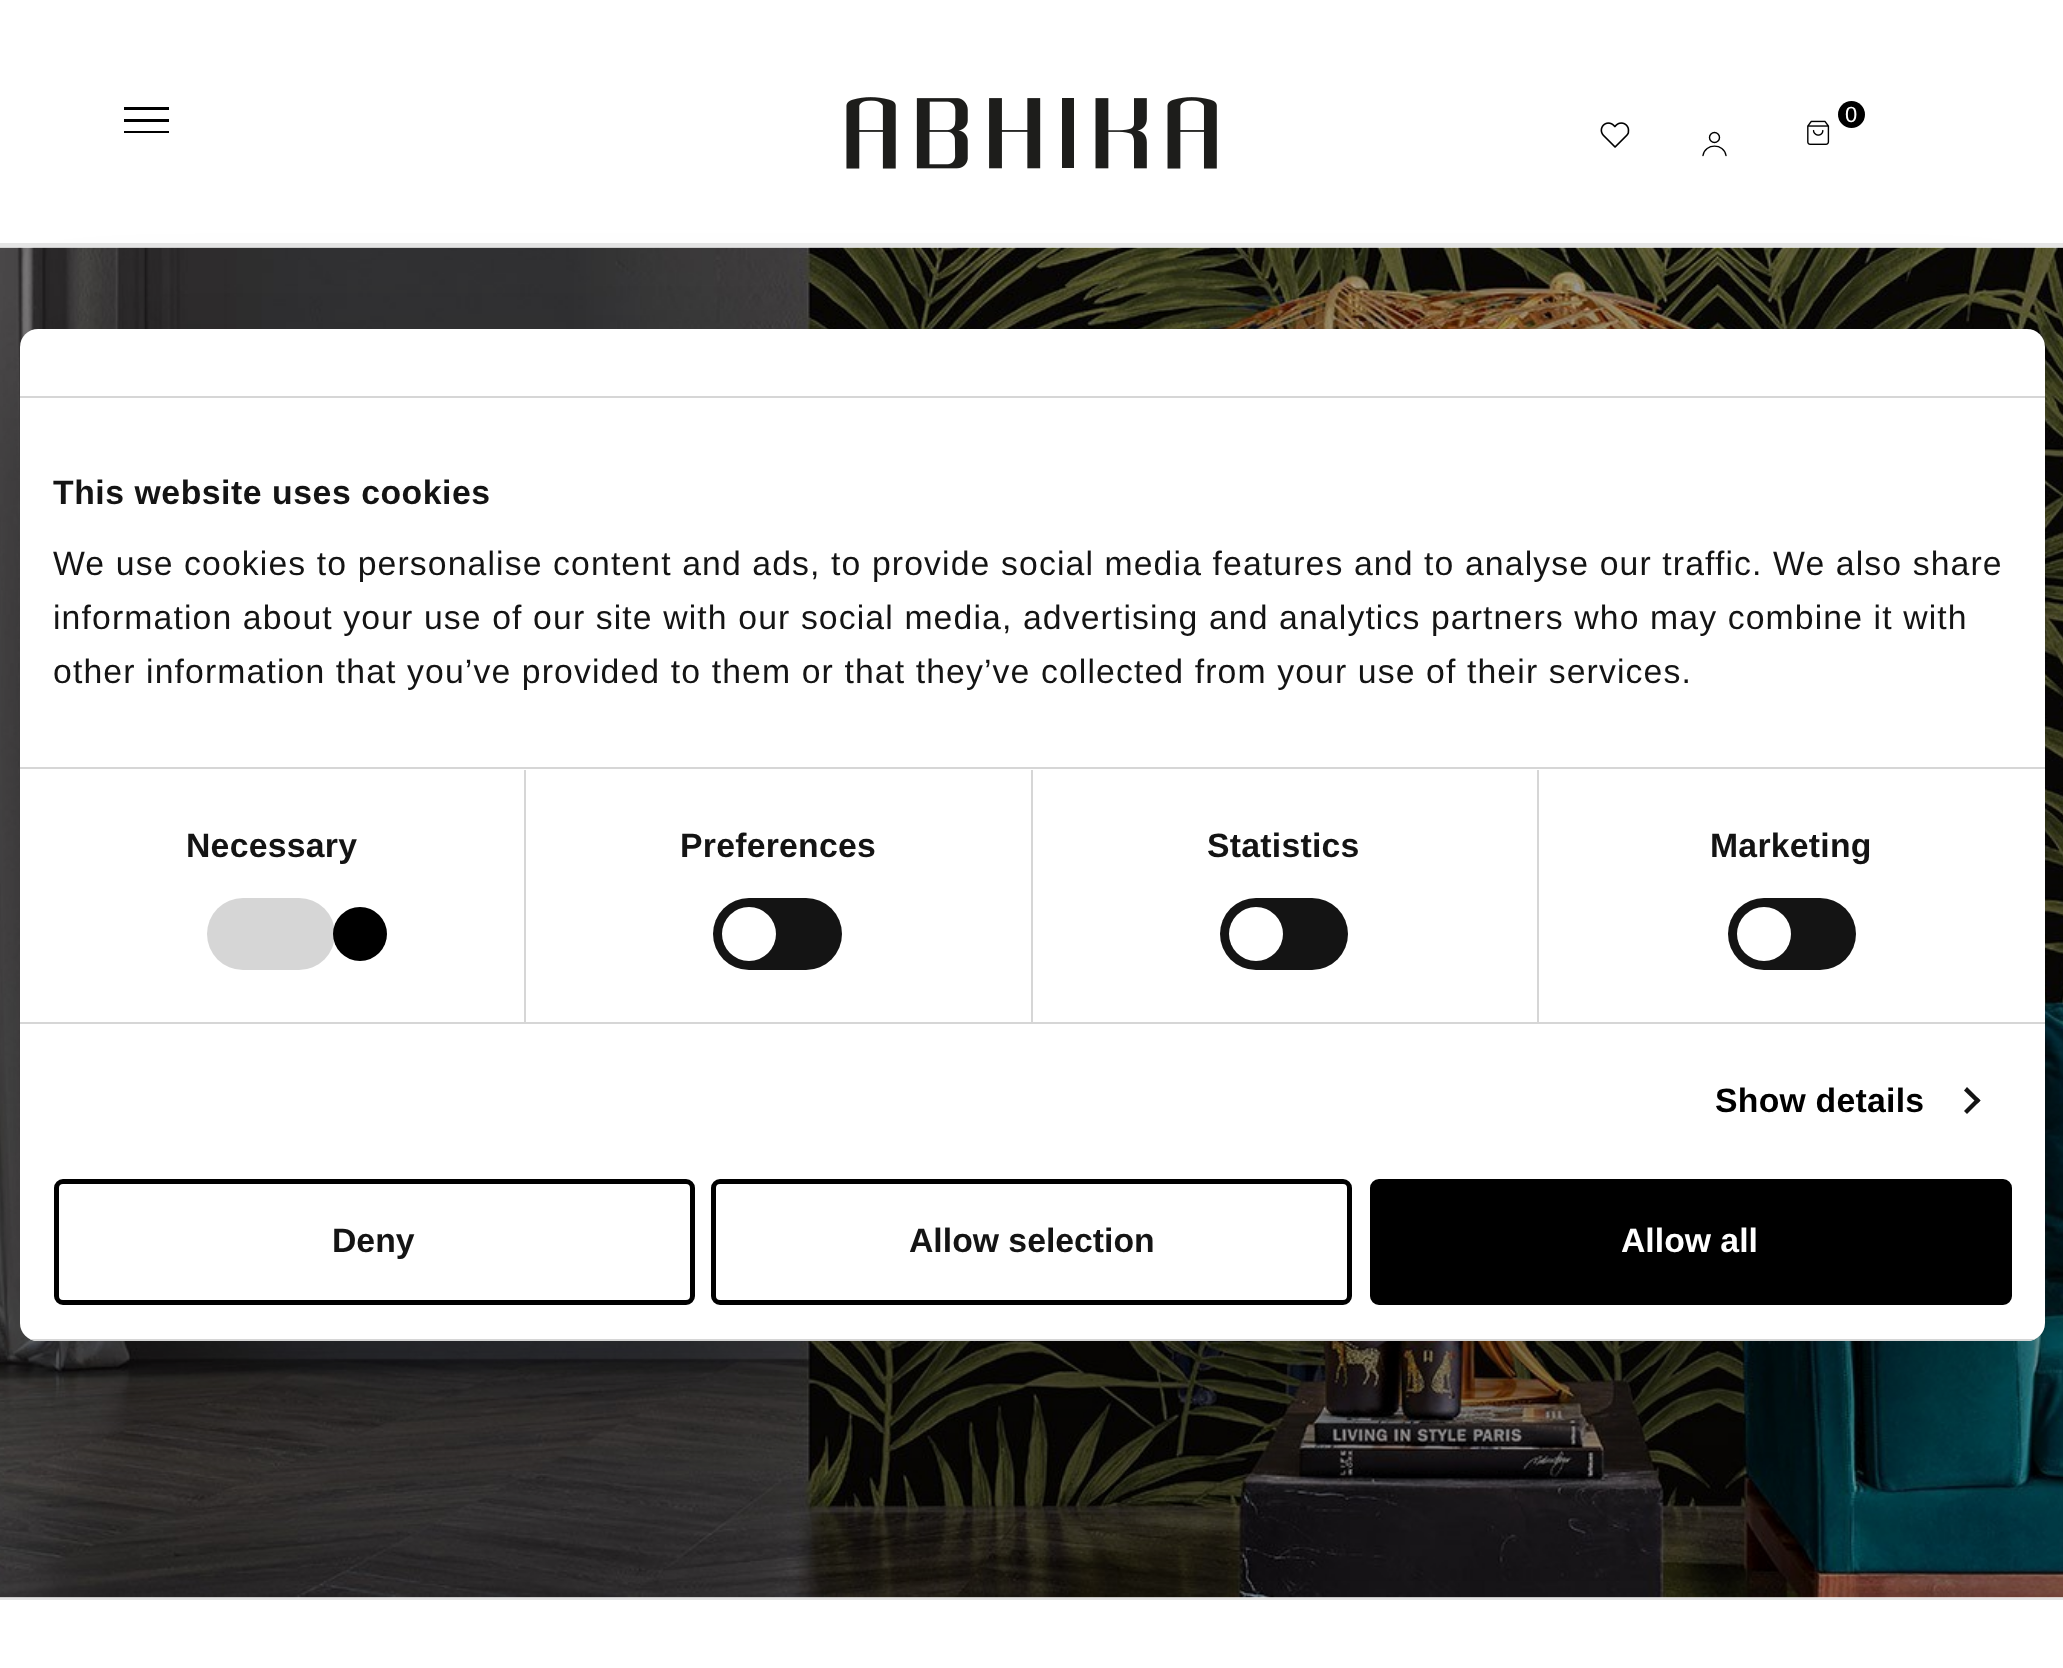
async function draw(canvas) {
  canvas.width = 2063
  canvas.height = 1668
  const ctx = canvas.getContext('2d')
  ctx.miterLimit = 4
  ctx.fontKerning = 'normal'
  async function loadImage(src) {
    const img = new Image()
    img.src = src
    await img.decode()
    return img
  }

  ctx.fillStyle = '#fff'
  ctx.fillRect(0, 0, 2063, 1668)
  ctx.fillStyle = '#e5e5e5'
  ctx.fillRect(0, 243, 2063, 4)
  ctx.fillStyle = '#000'
  ctx.beginPath()
  ctx.moveTo(124, 133)
  ctx.lineTo(169, 133)
  ctx.lineTo(169, 131)
  ctx.lineTo(124, 131)
  ctx.closePath()
  ctx.moveTo(124, 122)
  ctx.lineTo(169, 122)
  ctx.lineTo(169, 119)
  ctx.lineTo(124, 119)
  ctx.closePath()
  ctx.moveTo(124, 105)
  ctx.lineTo(124, 110)
  ctx.lineTo(169, 110)
  ctx.lineTo(169, 107)
  ctx.lineTo(124, 107)
  ctx.closePath()
  ctx.fill()
  ctx.drawImage(await loadImage('image0.png'), 846, 97, 371, 72)
  ctx.beginPath()
  ctx.arc(1851.5, 114.5, 13.5, 0, 2 * Math.PI)
  ctx.fill()
  ctx.font = '22px Liberation Sans'
  ctx.fillStyle = '#fff'
  ctx.fillText('0', 1845, 122)
  ctx.drawImage(await loadImage('image1.png'), 1807, 120, 23, 25)
  ctx.drawImage(await loadImage('image2.png'), 1600, 122, 30, 26)
  ctx.beginPath()
  ctx.moveTo(1726, 155.5)
  ctx.bezierCurveTo(1724, 143, 1705, 143, 1703, 155.5)
  ctx.strokeStyle = '#000'
  ctx.lineWidth = 1.4
  ctx.lineCap = 'round'
  ctx.lineJoin = 'round'
  ctx.stroke()
  ctx.beginPath()
  ctx.arc(1714.5, 137.5, 5, 0, 2 * Math.PI)
  ctx.stroke()
  ctx.drawImage(await loadImage('image3.png'), 0, 247, 2063, 1351)
  ctx.fillStyle = '#e5e5e5'
  ctx.fillRect(0, 1598, 2063, 2)
  ctx.fillStyle = '#0000004d'
  ctx.filter = 'blur(76.5px)'
  ctx.beginPath()
  ctx.roundRect(20, 401, 2025, 1012, 18)
  ctx.fill()
  ctx.filter = 'none'
  ctx.fillStyle = '#fff'
  ctx.beginPath()
  ctx.roundRect(20, 329, 2025, 1012, 18)
  ctx.fill()
  ctx.fillStyle = '#d6d6d6'
  ctx.fillRect(20, 396, 2025, 2)
  ctx.fillRect(20, 767, 2025, 2)
  ctx.letterSpacing = '0.55px'
  ctx.font = 'bold 33.75px Liberation Sans'
  ctx.fillStyle = '#141414'
  ctx.fillText('This website uses cookies', 53, 504)
  ctx.letterSpacing = '1.12px'
  ctx.font = '33.75px Liberation Sans'
  ctx.fillText('We use cookies to personalise content and ads, to provide social media features and to analyse our traffic. We also share', 53, 575)
  ctx.fillText('information about your use of our site with our social media, advertising and analytics partners who may combine it with', 53, 629)
  ctx.fillText('other information that you’ve provided to them or that they’ve collected from your use of their services.', 53, 683)
  ctx.fillStyle = '#d6d6d6'
  ctx.fillRect(20, 1022, 2025, 2)
  ctx.fillRect(524, 770, 2, 252)
  ctx.letterSpacing = '0.25px'
  ctx.font = 'bold 33.75px Liberation Sans'
  ctx.fillStyle = '#141414'
  ctx.fillText('Necessary', 186, 857)
  ctx.fillStyle = '#d6d6d6'
  ctx.beginPath()
  ctx.roundRect(207, 898, 128, 72, 36)
  ctx.fill()
  ctx.fillStyle = '#000'
  ctx.beginPath()
  ctx.arc(360, 934, 27, 0, 2 * Math.PI)
  ctx.fill()
  ctx.fillStyle = '#d6d6d6'
  ctx.fillRect(1031, 770, 2, 252)
  ctx.fillStyle = '#141414'
  ctx.fillText('Preferences', 680, 857)
  ctx.beginPath()
  ctx.roundRect(713, 898, 129, 72, 36)
  ctx.fill()
  ctx.fillStyle = '#fff'
  ctx.beginPath()
  ctx.arc(749, 934, 27, 0, 2 * Math.PI)
  ctx.fill()
  ctx.fillStyle = '#d6d6d6'
  ctx.fillRect(1537, 770, 2, 252)
  ctx.fillStyle = '#141414'
  ctx.fillText('Statistics', 1207, 857)
  ctx.beginPath()
  ctx.roundRect(1220, 898, 128, 72, 36)
  ctx.fill()
  ctx.fillStyle = '#fff'
  ctx.beginPath()
  ctx.arc(1256, 934, 27, 0, 2 * Math.PI)
  ctx.fill()
  ctx.fillStyle = '#141414'
  ctx.fillText('Marketing', 1710, 857)
  ctx.beginPath()
  ctx.roundRect(1728, 898, 128, 72, 36)
  ctx.fill()
  ctx.fillStyle = '#fff'
  ctx.beginPath()
  ctx.arc(1764, 934, 27, 0, 2 * Math.PI)
  ctx.fill()
  ctx.fillStyle = '#000'
  ctx.fillText('Show details', 1715, 1112)
  ctx.fillStyle = '#141414'
  ctx.beginPath()
  ctx.moveTo(1967, 1087)
  ctx.lineTo(1980.5, 1100.5)
  ctx.lineTo(1977.5, 1103.5)
  ctx.lineTo(1964, 1090.5)
  ctx.closePath()
  ctx.fill()
  ctx.beginPath()
  ctx.moveTo(1977.5, 1097.5)
  ctx.lineTo(1980.5, 1100.5)
  ctx.lineTo(1967, 1114)
  ctx.lineTo(1964, 1111)
  ctx.closePath()
  ctx.fill()
  ctx.save()
  ctx.beginPath()
  ctx.roundRect(20, 329, 2025, 1012, 18)
  ctx.clip()
  ctx.fillStyle = '#d6d6d6'
  ctx.fillRect(30, 1339, 2005, 2)
  ctx.restore()
  ctx.beginPath()
  ctx.roundRect(56.5, 1181.5, 636, 121, 6.5)
  ctx.lineWidth = 5
  ctx.lineJoin = 'miter'
  ctx.stroke()
  ctx.letterSpacing = '0px'
  ctx.fillText('Deny', 332, 1252)
  ctx.beginPath()
  ctx.roundRect(713.5, 1181.5, 636, 121, 6.5)
  ctx.stroke()
  ctx.fillText('Allow selection', 909, 1252)
  ctx.fillStyle = '#000'
  ctx.beginPath()
  ctx.roundRect(1372.5, 1181.5, 637, 121, 6.5)
  ctx.fill()
  ctx.stroke()
  ctx.fillStyle = '#fff'
  ctx.fillText('Allow all', 1621, 1252)
}

draw(document.querySelector('canvas'))
